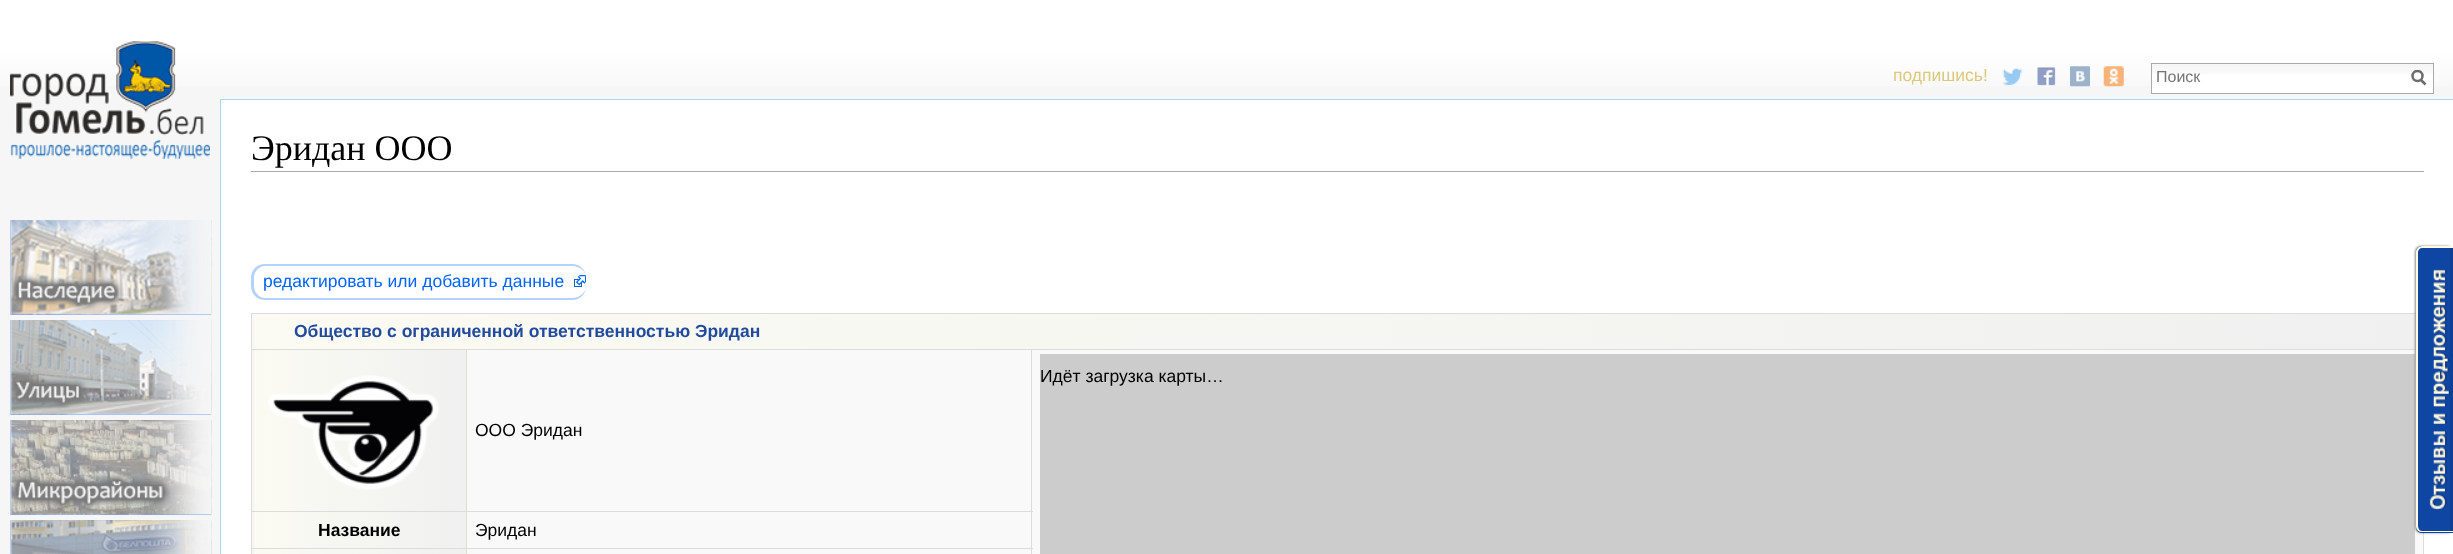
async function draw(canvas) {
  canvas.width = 2453
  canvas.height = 554
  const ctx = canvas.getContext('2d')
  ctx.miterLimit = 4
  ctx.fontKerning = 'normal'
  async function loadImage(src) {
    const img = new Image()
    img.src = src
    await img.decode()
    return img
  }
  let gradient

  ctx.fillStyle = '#f6f6f6'
  ctx.fillRect(0, 0, 2453, 554)
  gradient = ctx.createLinearGradient(1227, 0, 1227, 100)
  gradient.addColorStop(0.5, '#fff')
  gradient.addColorStop(1, '#f6f6f6')
  ctx.fillStyle = gradient
  ctx.fillRect(0, 0, 2453, 86)
  ctx.drawImage(await loadImage('image0.png'), 10, 41, 200, 118)
  ctx.drawImage(await loadImage('image1.png'), 11, 220, 201, 95)
  ctx.fillStyle = '#75a0f580'
  ctx.fillRect(10, 314, 201, 1)
  ctx.fillStyle = '#b6cbf6'
  ctx.fillRect(10, 220, 1, 95)
  ctx.drawImage(await loadImage('image2.png'), 11, 320, 201, 95)
  ctx.fillStyle = '#75a0f580'
  ctx.fillRect(10, 414, 201, 1)
  ctx.fillStyle = '#b6cbf6'
  ctx.fillRect(10, 320, 1, 95)
  ctx.drawImage(await loadImage('image3.png'), 11, 420, 201, 95)
  ctx.fillStyle = '#75a0f580'
  ctx.fillRect(10, 514, 201, 1)
  ctx.fillStyle = '#b6cbf6'
  ctx.fillRect(10, 420, 1, 95)
  ctx.drawImage(await loadImage('image4.png'), 11, 520, 201, 34)
  ctx.fillRect(10, 520, 1, 34)
  ctx.font = '17.5px Liberation Sans'
  ctx.fillStyle = '#dcc97e'
  ctx.fillText('подпишись!', 1893, 81)
  ctx.drawImage(await loadImage('image5.png'), 2002, 68, 21, 18)
  ctx.drawImage(await loadImage('image6.png'), 2037, 67, 19, 19)
  ctx.drawImage(await loadImage('image7.png'), 2070, 66, 20, 21)
  ctx.drawImage(await loadImage('image8.png'), 2103, 66, 21, 21)
  ctx.fillStyle = '#fff'
  ctx.fillRect(2152, 74, 281, 19)
  ctx.drawImage(await loadImage('image9.png'), 2152, 64, 281, 10)
  ctx.strokeStyle = '#aaa'
  ctx.strokeRect(2151.5, 63.5, 282, 30)
  ctx.font = '16px Liberation Sans'
  ctx.fillStyle = '#757575'
  ctx.fillText('Поиск', 2156, 82)
  ctx.beginPath()
  ctx.moveTo(2425.5, 84.5)
  ctx.lineTo(2420.5, 79.5)
  ctx.strokeStyle = '#6c6c6c'
  ctx.lineWidth = 2.5
  ctx.stroke()
  ctx.save()
  ctx.beginPath()
  ctx.rect(2411, 70, 15, 16)
  ctx.clip()
  ctx.beginPath()
  ctx.arc(2417.5, 76, 5, 0, 2 * Math.PI)
  ctx.stroke()
  ctx.restore()
  ctx.fillStyle = '#fff'
  ctx.fillRect(221, 100, 2232, 454)
  ctx.fillStyle = '#a7d7f9'
  ctx.fillRect(220, 99, 2233, 1)
  ctx.fillRect(220, 99, 1, 455)
  ctx.fillStyle = '#aaa'
  ctx.fillRect(251, 171, 2173, 1)
  ctx.font = '36px Liberation Serif'
  ctx.fillStyle = '#000'
  ctx.fillText('Эридан ООО', 251, 160)
  ctx.drawImage(await loadImage('image10.png'), 574, 275, 12, 12)
  ctx.fillStyle = '#b4d2ff'
  ctx.beginPath()
  ctx.moveTo(265, 264)
  ctx.lineTo(572, 264)
  ctx.bezierCurveTo(580, 264, 586, 270, 586, 278)
  ctx.lineTo(586, 286)
  ctx.bezierCurveTo(586, 294, 580, 300, 572, 300)
  ctx.lineTo(265, 300)
  ctx.bezierCurveTo(257, 300, 251, 294, 251, 286)
  ctx.lineTo(251, 278)
  ctx.bezierCurveTo(251, 270, 257, 264, 265, 264)
  ctx.closePath()
  ctx.moveTo(265, 266)
  ctx.lineTo(572, 266)
  ctx.bezierCurveTo(580, 266, 586, 271, 586, 278)
  ctx.lineTo(586, 286)
  ctx.bezierCurveTo(586, 292, 580, 298, 572, 298)
  ctx.lineTo(265, 298)
  ctx.bezierCurveTo(259, 298, 254, 292, 254, 286)
  ctx.lineTo(254, 278)
  ctx.bezierCurveTo(254, 271, 259, 266, 265, 266)
  ctx.closePath()
  ctx.fill('evenodd')
  ctx.font = '17.5px Liberation Sans'
  ctx.fillStyle = '#0064ff'
  ctx.fillText('редактировать или добавить данные', 263, 287)
  ctx.fillStyle = '#f9f9f9'
  ctx.fillRect(252, 314, 2171, 240)
  ctx.fillStyle = '#f5f5f5'
  ctx.fillRect(253, 314, 1, 35)
  gradient = ctx.createLinearGradient(254, 332, 2423, 332)
  gradient.addColorStop(0, '#fbfbf3')
  gradient.addColorStop(1, '#f0f0f0')
  ctx.fillStyle = gradient
  ctx.fillRect(254, 314, 2162, 35)
  ctx.fillStyle = '#dcdcdc'
  ctx.fillRect(251, 313, 2173, 1)
  ctx.fillRect(1031, 349, 1393, 1)
  gradient = ctx.createLinearGradient(466, 530, 679, 530)
  gradient.addColorStop(0, '#fbfbf3')
  gradient.addColorStop(1, '#f0f0f0')
  ctx.fillStyle = gradient
  ctx.fillRect(467, 511, 1, 38)
  ctx.fillStyle = '#dcdcdc'
  ctx.fillRect(466, 511, 567, 1)
  ctx.fillRect(466, 548, 567, 1)
  ctx.fillRect(1031, 349, 1, 205)
  ctx.fillRect(466, 349, 567, 1)
  gradient = ctx.createLinearGradient(41, 530, 254, 530)
  gradient.addColorStop(0, '#fbfbf3')
  gradient.addColorStop(1, '#f0f0f0')
  ctx.fillStyle = gradient
  ctx.fillRect(253, 511, 1, 38)
  ctx.fillStyle = '#dcdcdc'
  ctx.fillRect(466, 548, 1, 6)
  ctx.fillRect(251, 548, 217, 1)
  ctx.fillRect(466, 511, 1, 38)
  ctx.fillRect(251, 511, 217, 1)
  ctx.fillRect(466, 349, 1, 164)
  ctx.fillRect(251, 349, 217, 1)
  ctx.fillRect(251, 548, 1, 6)
  ctx.fillRect(251, 511, 1, 38)
  ctx.fillRect(251, 349, 1, 164)
  ctx.fillRect(251, 313, 1, 37)
  ctx.font = 'bold 17.5px Liberation Sans'
  ctx.fillStyle = '#224b9e'
  ctx.fillText('Общество с ограниченной ответственностью Эридан', 294, 337)
  gradient = ctx.createLinearGradient(41, 431, 254, 431)
  gradient.addColorStop(0, '#fbfbf3')
  gradient.addColorStop(1, '#f0f0f0')
  ctx.fillStyle = gradient
  ctx.fillRect(253, 350, 1, 161)
  gradient = ctx.createLinearGradient(254, 431, 466, 431)
  gradient.addColorStop(0, '#fbfbf3')
  gradient.addColorStop(1, '#f0f0f0')
  ctx.fillStyle = gradient
  ctx.fillRect(254, 350, 212, 161)
  gradient = ctx.createLinearGradient(466, 431, 679, 431)
  gradient.addColorStop(0, '#fbfbf3')
  gradient.addColorStop(1, '#f0f0f0')
  ctx.fillStyle = gradient
  ctx.fillRect(467, 350, 1, 161)
  ctx.drawImage(await loadImage('image11.png'), 268, 375, 171, 115)
  ctx.fillStyle = '#dcdcdc'
  ctx.fillRect(2423, 533, 1, 21)
  ctx.fillStyle = '#ccc'
  ctx.fillRect(1040, 354, 1375, 200)
  ctx.font = '17.5px Liberation Sans'
  ctx.fillStyle = '#000'
  ctx.fillText('Идёт загрузка карты…', 1040, 382)
  ctx.fillText('ООО Эридан', 475, 436)
  gradient = ctx.createLinearGradient(254, 530, 466, 530)
  gradient.addColorStop(0, '#fbfbf3')
  gradient.addColorStop(1, '#f0f0f0')
  ctx.fillStyle = gradient
  ctx.fillRect(254, 512, 212, 36)
  ctx.font = 'bold 17.5px Liberation Sans'
  ctx.fillStyle = '#000'
  ctx.fillText('Название', 318, 536)
  ctx.font = '17.5px Liberation Sans'
  ctx.fillText('Эридан', 475, 536)
  gradient = ctx.createLinearGradient(41, 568, 254, 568)
  gradient.addColorStop(0, '#fbfbf3')
  gradient.addColorStop(1, '#f0f0f0')
  ctx.fillStyle = gradient
  ctx.fillRect(253, 549, 1, 5)
  gradient = ctx.createLinearGradient(254, 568, 466, 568)
  gradient.addColorStop(0, '#fbfbf3')
  gradient.addColorStop(1, '#f0f0f0')
  ctx.fillStyle = gradient
  ctx.fillRect(254, 549, 212, 5)
  gradient = ctx.createLinearGradient(466, 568, 679, 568)
  gradient.addColorStop(0, '#fbfbf3')
  gradient.addColorStop(1, '#f0f0f0')
  ctx.fillStyle = gradient
  ctx.fillRect(467, 549, 1, 5)
  ctx.fillStyle = '#888'
  ctx.filter = 'blur(1px)'
  ctx.beginPath()
  ctx.roundRect(2415, 246, 38, 287, 6)
  ctx.fill()
  ctx.filter = 'none'
  ctx.fillStyle = '#0f45a3'
  ctx.beginPath()
  ctx.moveTo(2422, 246)
  ctx.lineTo(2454, 246)
  ctx.lineTo(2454, 533)
  ctx.lineTo(2422, 533)
  ctx.bezierCurveTo(2418.5, 533, 2416, 530.5, 2416, 527)
  ctx.lineTo(2416, 252)
  ctx.bezierCurveTo(2416, 248.5, 2418.5, 246, 2422, 246)
  ctx.closePath()
  ctx.fill()
  ctx.drawImage(await loadImage('image12.png'), 2449, 248, 4, 283)
  ctx.fillStyle = '#fffae3'
  ctx.beginPath()
  ctx.moveTo(2422, 246)
  ctx.lineTo(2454, 246)
  ctx.lineTo(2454, 532)
  ctx.lineTo(2422, 532)
  ctx.bezierCurveTo(2419, 532, 2416, 530, 2416, 526)
  ctx.lineTo(2416, 252)
  ctx.bezierCurveTo(2416, 249, 2419, 246, 2422, 246)
  ctx.closePath()
  ctx.moveTo(2422, 248)
  ctx.lineTo(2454, 248)
  ctx.lineTo(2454, 531)
  ctx.lineTo(2422, 531)
  ctx.bezierCurveTo(2420, 531, 2418, 529, 2418, 526)
  ctx.lineTo(2418, 252)
  ctx.bezierCurveTo(2418, 250, 2420, 248, 2422, 248)
  ctx.closePath()
  ctx.fill('evenodd')
  ctx.drawImage(await loadImage('image13.png'), 2429, 269, 21, 241)
}

draw(document.querySelector('canvas'))
